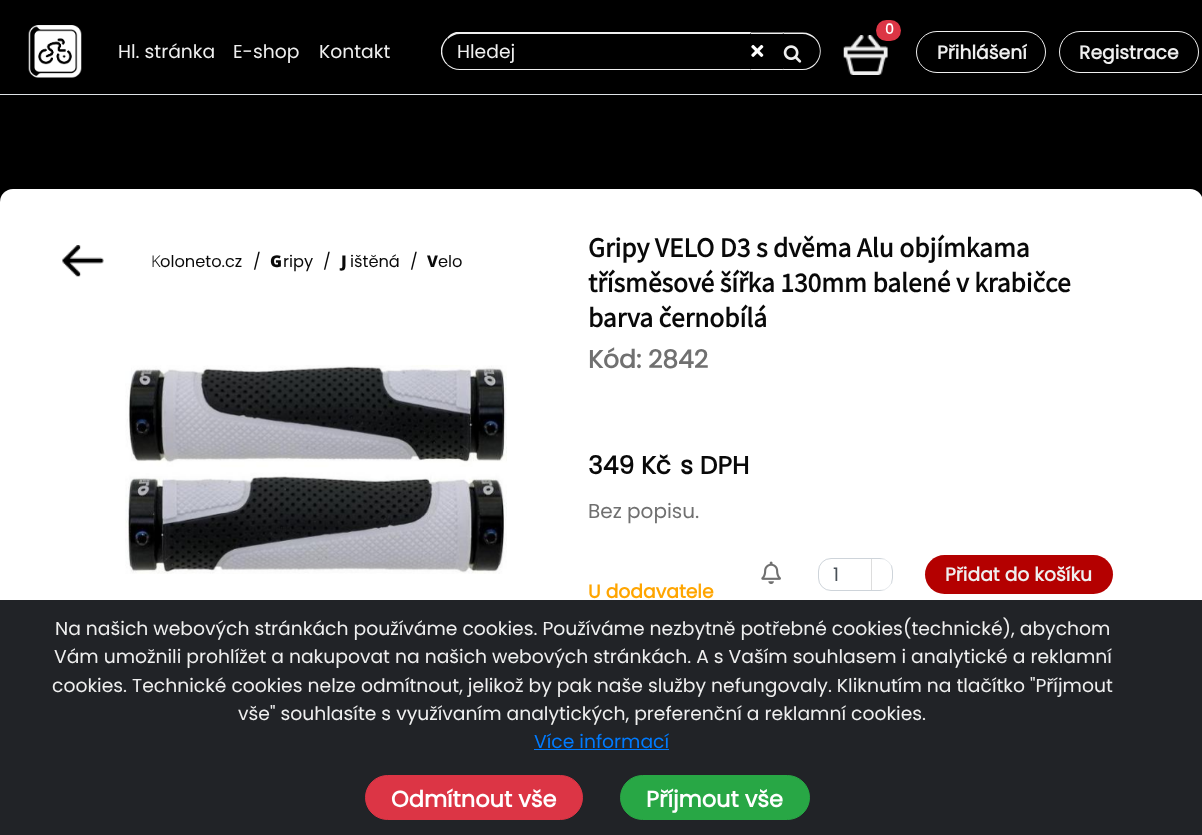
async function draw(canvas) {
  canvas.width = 1202
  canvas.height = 835
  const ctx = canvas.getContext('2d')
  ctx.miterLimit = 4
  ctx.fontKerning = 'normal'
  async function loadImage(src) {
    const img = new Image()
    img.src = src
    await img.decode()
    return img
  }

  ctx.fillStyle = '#000'
  ctx.fillRect(0, 0, 1202, 835)
  ctx.fillStyle = '#dee2e6'
  ctx.fillRect(0, 94, 1202, 1)
  ctx.drawImage(await loadImage('image0.png'), 28, 25, 54, 53)
  ctx.font = '18.75px Poppins'
  ctx.fillStyle = '#efefef'
  ctx.fillText('Hl. stránka', 118, 58)
  ctx.fillText('E-shop', 233, 58)
  ctx.fillText('Kontakt', 319, 58)
  ctx.beginPath()
  ctx.moveTo(460, 34)
  ctx.bezierCurveTo(455, 34, 451, 36, 448, 39)
  ctx.lineTo(447, 38)
  ctx.bezierCurveTo(449, 35, 452, 33, 456, 32)
  ctx.lineTo(751, 32)
  ctx.lineTo(750, 34)
  ctx.closePath()
  ctx.fill()
  ctx.beginPath()
  ctx.moveTo(460, 70)
  ctx.lineTo(751, 70)
  ctx.lineTo(750, 69)
  ctx.lineTo(460, 69)
  ctx.bezierCurveTo(455, 69, 451, 67, 447, 64)
  ctx.lineTo(447, 65)
  ctx.bezierCurveTo(450, 68, 455, 70, 460, 70)
  ctx.closePath()
  ctx.fill()
  ctx.beginPath()
  ctx.moveTo(441, 48)
  ctx.bezierCurveTo(442, 44.5, 444, 40.5, 446.5, 38)
  ctx.lineTo(447.5, 39)
  ctx.bezierCurveTo(440.5, 45.5, 440.5, 57, 447.5, 64)
  ctx.lineTo(446.5, 64.5)
  ctx.bezierCurveTo(444, 62, 442, 58.5, 441, 54)
  ctx.closePath()
  ctx.fill()
  ctx.fillText('Hledej', 457, 58)
  ctx.beginPath()
  ctx.moveTo(750, 32.5)
  ctx.lineTo(784, 32.5)
  ctx.lineTo(782.5, 34)
  ctx.lineTo(751, 34)
  ctx.closePath()
  ctx.moveTo(784, 70)
  ctx.lineTo(750, 70)
  ctx.lineTo(751, 69)
  ctx.lineTo(782.5, 69)
  ctx.closePath()
  ctx.fill()
  ctx.drawImage(await loadImage('image1.png'), 751, 44, 13, 13)
  ctx.beginPath()
  ctx.moveTo(782.5, 32.5)
  ctx.lineTo(784, 34)
  ctx.lineTo(802.5, 34)
  ctx.bezierCurveTo(807, 34, 811.5, 36, 815, 39)
  ctx.lineTo(815.5, 38)
  ctx.bezierCurveTo(812.5, 34.5, 808, 32.5, 802.5, 32.5)
  ctx.closePath()
  ctx.fill()
  ctx.beginPath()
  ctx.moveTo(815.5, 38)
  ctx.bezierCurveTo(822.5, 45, 822.5, 57, 815.5, 64.5)
  ctx.lineTo(815, 63.5)
  ctx.bezierCurveTo(821.5, 57, 821.5, 45.5, 815, 39)
  ctx.closePath()
  ctx.fill()
  ctx.beginPath()
  ctx.moveTo(802.5, 70)
  ctx.bezierCurveTo(808, 70, 812.5, 68, 815.5, 64.5)
  ctx.lineTo(815, 63.5)
  ctx.bezierCurveTo(811.5, 67, 807.5, 69, 802.5, 69)
  ctx.lineTo(784, 69)
  ctx.lineTo(784, 68.5)
  ctx.lineTo(782.5, 70)
  ctx.closePath()
  ctx.fill()
  ctx.drawImage(await loadImage('image2.png'), 783, 45, 19, 18)
  ctx.drawImage(await loadImage('image3.png'), 843, 35, 45, 40)
  ctx.fillStyle = '#dc3545'
  ctx.beginPath()
  ctx.roundRect(876, 20, 25, 21, 10.5)
  ctx.fill()
  ctx.font = 'bold 14px Poppins'
  ctx.fillStyle = '#fff'
  ctx.fillText('0', 885, 34)
  ctx.beginPath()
  ctx.roundRect(916.5, 31.5, 129, 41, 20.5)
  ctx.strokeStyle = '#efefef'
  ctx.stroke()
  ctx.font = 'bold 18.75px Poppins'
  ctx.fillStyle = '#efefef'
  ctx.fillText('Přihlášení', 937, 59)
  ctx.beginPath()
  ctx.roundRect(1059.5, 31.5, 139, 41, 20.5)
  ctx.stroke()
  ctx.fillText('Registrace', 1079, 59)
  ctx.fillStyle = '#fff'
  ctx.beginPath()
  ctx.roundRect(0, 189, 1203, 635, 13)
  ctx.fill()
  ctx.drawImage(await loadImage('image4.png'), 62, 245, 42, 32)
  ctx.font = '300 16.25px Noto Sans'
  ctx.fillStyle = '#090909'
  ctx.fillText('K', 151, 267)
  ctx.font = '16.25px Poppins'
  ctx.fillText('oloneto.cz', 160, 267)
  ctx.fillText('/', 253, 267)
  ctx.font = '900 16.25px Noto Sans'
  ctx.fillText('G', 270, 267)
  ctx.font = '16.25px Poppins'
  ctx.fillText('ripy', 283, 267)
  ctx.fillText('/', 323, 267)
  ctx.font = '900 16.25px Noto Sans'
  ctx.fillText('J', 341, 267)
  ctx.font = '16.25px Poppins'
  ctx.fillText('ištěná', 350, 267)
  ctx.fillText('/', 410, 267)
  ctx.font = '800 16.25px Noto Sans'
  ctx.fillText('V', 427, 267)
  ctx.font = '16.25px Poppins'
  ctx.fillText('elo', 438, 267)
  ctx.drawImage(await loadImage('image5.png'), 125, 365, 382, 209)
  ctx.font = 'bold 27.5px Source Sans Pro'
  ctx.fillText('Gripy VELO D3 s dvěma Alu objímkama', 588, 257)
  ctx.fillText('třísměsové šířka 130mm balené v krabičce', 588, 292)
  ctx.fillText('barva černobílá', 588, 327)
  ctx.font = 'bold 25px Poppins'
  ctx.fillStyle = '#707070'
  ctx.fillText('Kód: 2842', 588, 368)
  ctx.fillStyle = '#090909'
  ctx.fillText('349 Kč', 588, 474)
  ctx.fillText('s DPH', 680, 474)
  ctx.font = '20px Poppins'
  ctx.fillStyle = '#707070'
  ctx.fillText('Bez popisu.', 588, 518)
  ctx.drawImage(await loadImage('image6.png'), 761, 561, 20, 23)
  ctx.beginPath()
  ctx.roundRect(818.5, 558.5, 74, 32, 12.5)
  ctx.strokeStyle = '#ced4da'
  ctx.stroke()
  ctx.font = '18.75px Poppins'
  ctx.fillStyle = '#495057'
  ctx.fillText('1', 833, 581)
  ctx.fillStyle = '#ffffff80'
  ctx.fillRect(881, 559, 10, 31)
  ctx.fillStyle = '#ddd'
  ctx.fillRect(871, 559, 1, 31)
  ctx.fillStyle = '#b40000'
  ctx.beginPath()
  ctx.roundRect(925, 555, 188, 39, 19.5)
  ctx.fill()
  ctx.font = 'bold 18.75px Poppins'
  ctx.fillStyle = '#efefef'
  ctx.fillText('Přidat do košíku', 945, 581)
  ctx.fillStyle = '#ffa500'
  ctx.fillText('U dodavatele', 588, 598)
  ctx.fillStyle = '#212327'
  ctx.fillRect(0, 600, 1202, 235)
  ctx.font = '18.75px Poppins'
  ctx.fillStyle = '#efefef'
  ctx.fillText('Na našich webových stránkách používáme cookies. Používáme nezbytně potřebné cookies(technické), abychom', 55, 635)
  ctx.fillText('Vám umožnili prohlížet a nakupovat na našich webových stránkách. A s Vaším souhlasem i analytické a reklamní', 54, 663)
  ctx.fillText('cookies. Technické cookies nelze odmítnout, jelikož by pak naše služby nefungovaly. Kliknutím na tlačítko "Příjmout', 52, 692)
  ctx.fillText('vše" souhlasíte s využívaním analytických, preferenční a reklamní cookies.', 238, 720)
  ctx.fillStyle = '#007bff'
  ctx.fillText('Více informací', 534, 748)
  ctx.fillRect(534, 749, 135, 1)
  ctx.fillStyle = '#dc3545'
  ctx.beginPath()
  ctx.roundRect(365.5, 775.5, 217, 44, 22)
  ctx.fill()
  ctx.strokeStyle = '#dc3545'
  ctx.stroke()
  ctx.font = 'bold 22.5px Poppins'
  ctx.fillStyle = '#fff'
  ctx.fillText('Odmítnout vše', 391, 807)
  ctx.fillStyle = '#28a745'
  ctx.beginPath()
  ctx.roundRect(620.5, 775.5, 189, 44, 22)
  ctx.fill()
  ctx.strokeStyle = '#28a745'
  ctx.stroke()
  ctx.fillStyle = '#fff'
  ctx.fillText('Příjmout vše', 646, 807)
}

draw(document.querySelector('canvas'))
